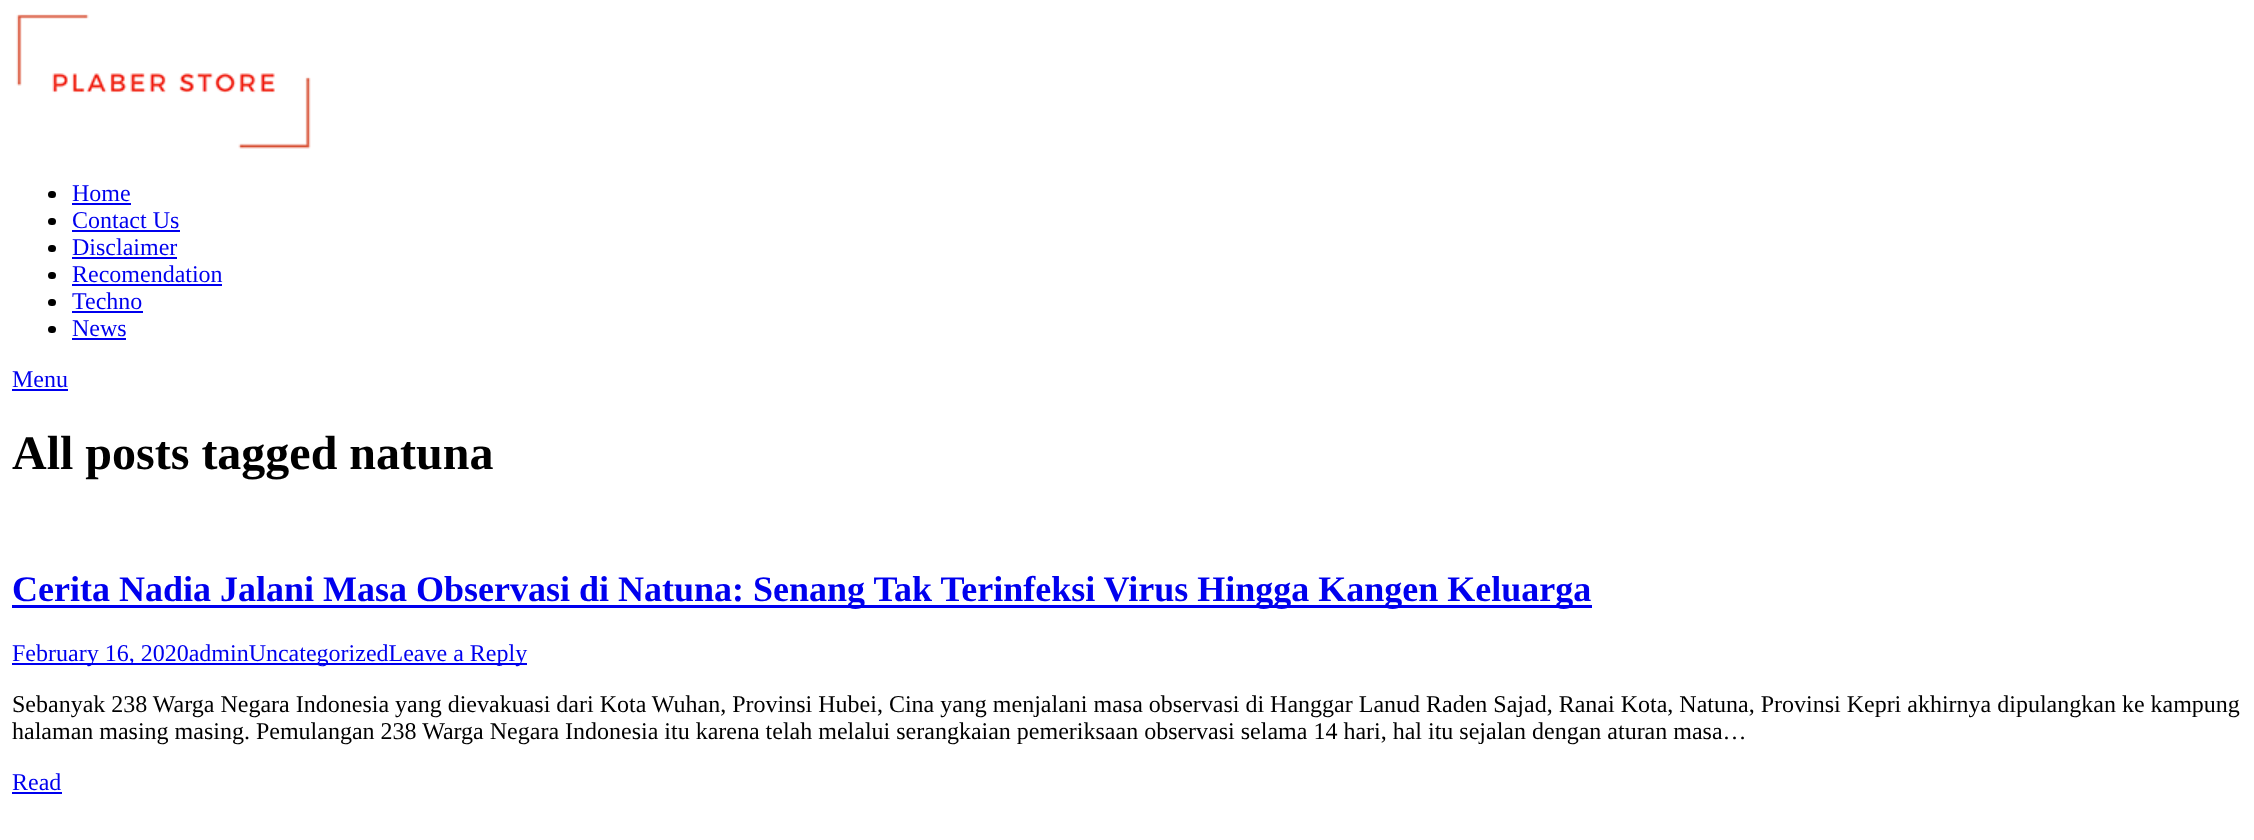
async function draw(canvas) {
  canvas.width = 2254
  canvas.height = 840
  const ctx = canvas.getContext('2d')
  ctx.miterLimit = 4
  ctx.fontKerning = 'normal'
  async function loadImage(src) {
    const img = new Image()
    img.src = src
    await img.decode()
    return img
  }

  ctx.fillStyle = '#fff'
  ctx.fillRect(0, 0, 2254, 840)
  ctx.drawImage(await loadImage('image0.png'), 16, 14, 295, 135)
  ctx.fillStyle = '#000'
  ctx.beginPath()
  ctx.roundRect(48, 191, 8, 7, 3.5)
  ctx.fill()
  ctx.font = '24px Liberation Serif'
  ctx.fillStyle = '#00e'
  ctx.fillText('Home', 72, 201)
  ctx.fillRect(72, 203, 59, 2)
  ctx.fillStyle = '#000'
  ctx.beginPath()
  ctx.roundRect(48, 218, 8, 7, 3.5)
  ctx.fill()
  ctx.fillStyle = '#00e'
  ctx.fillText('Contact Us', 72, 228)
  ctx.fillRect(72, 230, 108, 2)
  ctx.fillStyle = '#000'
  ctx.beginPath()
  ctx.roundRect(48, 245, 8, 7, 3.5)
  ctx.fill()
  ctx.fillStyle = '#00e'
  ctx.fillText('Disclaimer', 72, 255)
  ctx.fillRect(72, 257, 105, 2)
  ctx.fillStyle = '#000'
  ctx.beginPath()
  ctx.roundRect(48, 272, 8, 7, 3.5)
  ctx.fill()
  ctx.fillStyle = '#00e'
  ctx.fillText('Recomendation', 72, 282)
  ctx.fillRect(72, 284, 150, 2)
  ctx.fillStyle = '#000'
  ctx.beginPath()
  ctx.roundRect(48, 299, 8, 7, 3.5)
  ctx.fill()
  ctx.fillStyle = '#00e'
  ctx.fillText('Techno', 72, 309)
  ctx.fillRect(72, 311, 71, 2)
  ctx.fillStyle = '#000'
  ctx.beginPath()
  ctx.roundRect(48, 326, 8, 7, 3.5)
  ctx.fill()
  ctx.fillStyle = '#00e'
  ctx.fillText('News', 72, 336)
  ctx.fillRect(72, 338, 54, 2)
  ctx.fillText('Menu', 12, 387)
  ctx.fillRect(12, 389, 56, 2)
  ctx.font = 'bold 48px Liberation Serif'
  ctx.fillStyle = '#000'
  ctx.fillText('All posts tagged natuna', 12, 469)
  ctx.fillStyle = '#00e'
  ctx.fillRect(12, 605, 1580, 3)
  ctx.font = 'bold 36px Liberation Serif'
  ctx.fillText('Cerita Nadia Jalani Masa Observasi di Natuna: Senang Tak Terinfeksi Virus Hingga Kangen Keluarga', 12, 601)
  ctx.fillRect(12, 663, 515, 2)
  ctx.font = '24px Liberation Serif'
  ctx.fillText('February 16, 2020adminUncategorizedLeave a Reply', 12, 661)
  ctx.fillStyle = '#000'
  ctx.fillText('Sebanyak 238 Warga Negara Indonesia yang dievakuasi dari Kota Wuhan, Provinsi Hubei, Cina yang menjalani masa observasi di Hanggar Lanud Raden Sajad, Ranai Kota, Natuna, Provinsi Kepri akhirnya dipulangkan ke kampung', 12, 712)
  ctx.fillText('halaman masing masing. Pemulangan 238 Warga Negara Indonesia itu karena telah melalui serangkaian pemeriksaan observasi selama 14 hari, hal itu sejalan dengan aturan masa…', 12, 739)
  ctx.fillStyle = '#00e'
  ctx.fillText('Read', 12, 790)
  ctx.fillRect(12, 792, 50, 2)
}

draw(document.querySelector('canvas'))
